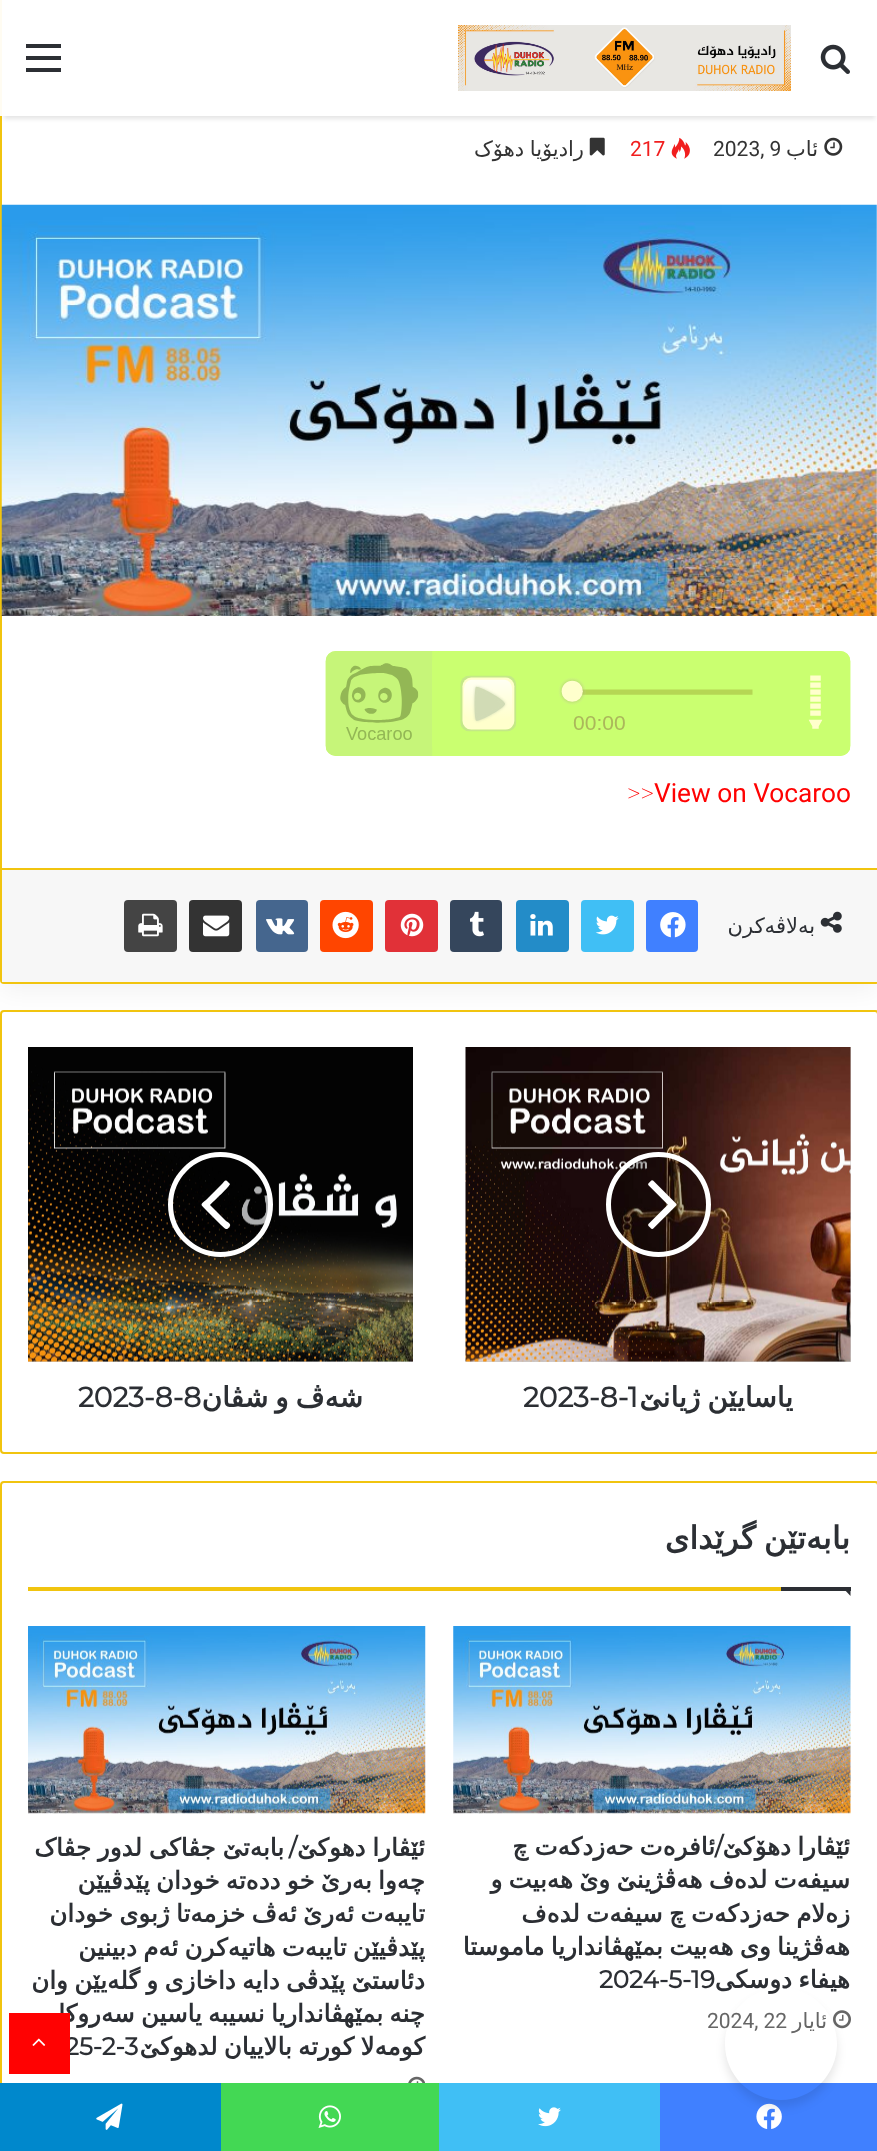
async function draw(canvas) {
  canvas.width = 877
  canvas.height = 2151
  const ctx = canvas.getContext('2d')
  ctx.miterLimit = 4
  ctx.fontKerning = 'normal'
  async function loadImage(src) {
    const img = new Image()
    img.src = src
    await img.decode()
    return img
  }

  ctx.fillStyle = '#fff'
  ctx.fillRect(0, 0, 877, 2151)
  ctx.fillStyle = '#0000000d'
  ctx.filter = 'blur(13px)'
  ctx.beginPath()
  ctx.roundRect(0, -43, 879, 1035, 4)
  ctx.fill()
  ctx.filter = 'none'
  ctx.fillStyle = '#fff'
  ctx.beginPath()
  ctx.roundRect(1, -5, 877, 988, 3)
  ctx.fill()
  ctx.strokeStyle = '#f1c40f'
  ctx.lineWidth = 2
  ctx.stroke()
  ctx.save()
  ctx.beginPath()
  ctx.moveTo(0, 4)
  ctx.lineTo(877, 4)
  ctx.lineTo(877, 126)
  ctx.lineTo(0, 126)
  ctx.closePath()
  ctx.moveTo(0, 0)
  ctx.lineTo(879, 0)
  ctx.lineTo(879, 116)
  ctx.lineTo(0, 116)
  ctx.closePath()
  ctx.clip('evenodd')
  ctx.fillStyle = '#0000001a'
  ctx.filter = 'blur(2px)'
  ctx.beginPath()
  ctx.rect(4, 11, 871, 108)
  ctx.fill()
  ctx.filter = 'none'
  ctx.restore()
  ctx.fillStyle = '#fffffff2'
  ctx.fillRect(0, 0, 876, 116)
  ctx.drawImage(await loadImage('image0.png'), 820, 44, 30, 30)
  ctx.drawImage(await loadImage('image1.png'), 458, 25, 333, 66)
  ctx.fillStyle = '#2c2f34'
  ctx.fillRect(26, 56, 35, 4)
  ctx.fillRect(26, 44, 35, 4)
  ctx.fillRect(26, 68, 35, 4)
  ctx.drawImage(await loadImage('image2.png'), 824, 137, 19, 19)
  ctx.direction = 'rtl'
  ctx.font = '21px DejaVu Sans'
  ctx.fillStyle = '#333'
  ctx.fillText('ئاب', 818, 156)
  ctx.direction = 'ltr'
  ctx.font = '21px Roboto'
  ctx.fillText('2023, 9', 713, 156)
  ctx.drawImage(await loadImage('image3.png'), 671, 137, 19, 22)
  ctx.fillStyle = '#f11e1e'
  ctx.fillText('217', 630, 156)
  ctx.drawImage(await loadImage('image4.png'), 589, 137, 16, 19)
  ctx.wordSpacing = '-1px'
  ctx.direction = 'rtl'
  ctx.font = '21px DejaVu Sans'
  ctx.fillStyle = '#333'
  ctx.fillText('رادیۆیا دھۆک', 584, 156)
  ctx.drawImage(await loadImage('image5.png'), 1, 204, 876, 412)
  ctx.drawImage(await loadImage('image6.png'), 325, 651, 526, 105)
  ctx.wordSpacing = '0px'
  ctx.direction = 'ltr'
  ctx.font = '26.25px Roboto'
  ctx.fillStyle = '#ff0202'
  ctx.fillText('View on Vocaroo', 654, 802)
  ctx.font = '100 26.25px Roboto'
  ctx.fillText('>>', 627, 802)
  ctx.fillStyle = '#f7f7f7'
  ctx.fillRect(2, 870, 875, 112)
  ctx.fillStyle = '#f1c40f'
  ctx.fillRect(2, 868, 875, 2)
  ctx.drawImage(await loadImage('image7.png'), 820, 911, 22, 22)
  ctx.direction = 'rtl'
  ctx.font = '21px DejaVu Sans'
  ctx.fillStyle = '#2c2f34'
  ctx.fillText('بەلاڤەکرن', 815, 933)
  ctx.fillStyle = '#4080ff'
  ctx.beginPath()
  ctx.roundRect(646, 900, 52, 52, 4)
  ctx.fill()
  ctx.drawImage(await loadImage('image8.png'), 660, 912, 26, 26)
  ctx.fillStyle = '#40bff5'
  ctx.beginPath()
  ctx.roundRect(581, 900, 53, 52, 4)
  ctx.fill()
  ctx.drawImage(await loadImage('image9.png'), 595, 915, 24, 20)
  ctx.fillStyle = '#238cc8'
  ctx.beginPath()
  ctx.roundRect(516, 900, 53, 52, 4)
  ctx.fill()
  ctx.drawImage(await loadImage('image10.png'), 530, 914, 23, 22)
  ctx.fillStyle = '#35465c'
  ctx.beginPath()
  ctx.roundRect(450, 900, 52, 52, 4)
  ctx.fill()
  ctx.drawImage(await loadImage('image11.png'), 470, 911, 14, 26)
  ctx.fillStyle = '#e13138'
  ctx.beginPath()
  ctx.roundRect(385, 900, 53, 52, 4)
  ctx.fill()
  ctx.drawImage(await loadImage('image12.png'), 400, 913, 24, 24)
  ctx.fillStyle = '#ff4500'
  ctx.beginPath()
  ctx.roundRect(320, 900, 53, 52, 4)
  ctx.fill()
  ctx.drawImage(await loadImage('image13.png'), 332, 911, 27, 28)
  ctx.fillStyle = '#45668e'
  ctx.beginPath()
  ctx.roundRect(256, 900, 52, 52, 4)
  ctx.fill()
  ctx.drawImage(await loadImage('image14.png'), 266, 918, 29, 17)
  ctx.fillStyle = '#333'
  ctx.beginPath()
  ctx.roundRect(189, 900, 53, 52, 4)
  ctx.fill()
  ctx.drawImage(await loadImage('image15.png'), 203, 915, 27, 22)
  ctx.fillStyle = '#444'
  ctx.beginPath()
  ctx.roundRect(124, 900, 53, 52, 4)
  ctx.fill()
  ctx.drawImage(await loadImage('image16.png'), 138, 913, 25, 24)
  ctx.beginPath()
  ctx.roundRect(1, 1011, 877, 442, 3)
  ctx.stroke()
  ctx.fillStyle = '#ccc'
  ctx.fillRect(466, 1047, 385, 315)
  ctx.drawImage(await loadImage('image17.png'), 465, 1047, 386, 315)
  ctx.fillStyle = '#0000004d'
  ctx.beginPath()
  ctx.arc(658.5, 1204.5, 50, 0, 2 * Math.PI)
  ctx.fill()
  ctx.strokeStyle = '#fff'
  ctx.lineWidth = 5
  ctx.stroke()
  ctx.drawImage(await loadImage('image18.png'), 648, 1180, 29, 49)
  ctx.wordSpacing = '-2px'
  ctx.font = 'bold 28px DejaVu Sans'
  ctx.fillStyle = '#2c2f34'
  ctx.fillText('یاسایێن ژیانێ', 793, 1407)
  ctx.wordSpacing = '0px'
  ctx.direction = 'ltr'
  ctx.font = 'bold 28px Montserrat'
  ctx.fillText('2023-8-1', 523, 1407)
  ctx.fillStyle = '#ccc'
  ctx.fillRect(28, 1361, 385, 1)
  ctx.drawImage(await loadImage('image19.png'), 28, 1047, 385, 315)
  ctx.fillStyle = '#0000004d'
  ctx.beginPath()
  ctx.arc(220.5, 1204.5, 50, 0, 2 * Math.PI)
  ctx.fill()
  ctx.stroke()
  ctx.fillStyle = '#fff'
  ctx.beginPath()
  ctx.moveTo(230, 1184)
  ctx.bezierCurveTo(230, 1186, 213, 1202, 210, 1205)
  ctx.lineTo(226, 1221)
  ctx.bezierCurveTo(228, 1222, 231, 1224, 230, 1226)
  ctx.bezierCurveTo(226, 1232, 225, 1228, 221, 1225)
  ctx.lineTo(206, 1210)
  ctx.bezierCurveTo(200, 1204, 200, 1205, 206, 1200)
  ctx.lineTo(221, 1185)
  ctx.bezierCurveTo(225, 1181, 225, 1179, 228, 1182)
  ctx.closePath()
  ctx.fill()
  ctx.wordSpacing = '-2px'
  ctx.direction = 'rtl'
  ctx.font = 'bold 28px DejaVu Sans'
  ctx.fillStyle = '#2c2f34'
  ctx.fillText('شەڤ و شڤان', 363, 1407)
  ctx.wordSpacing = '0px'
  ctx.direction = 'ltr'
  ctx.font = 'bold 28px Montserrat'
  ctx.fillText('2023-8-8', 78, 1407)
  ctx.beginPath()
  ctx.roundRect(1, 1482, 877, 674, 3)
  ctx.strokeStyle = '#f1c40f'
  ctx.lineWidth = 2
  ctx.stroke()
  ctx.fillStyle = '#f1c40f'
  ctx.fillRect(28, 1587, 753, 4)
  ctx.wordSpacing = '-2px'
  ctx.direction = 'rtl'
  ctx.font = 'bold 31.5px DejaVu Sans'
  ctx.fillStyle = '#2c2f34'
  ctx.fillText('بابەتێن گرێدای', 850, 1549)
  ctx.beginPath()
  ctx.moveTo(842, 1587)
  ctx.lineTo(850.5, 1587)
  ctx.lineTo(850.5, 1596)
  ctx.closePath()
  ctx.fill()
  ctx.fillRect(781, 1587, 70, 4)
  ctx.drawImage(await loadImage('image20.png'), 453, 1626, 398, 188)
  ctx.wordSpacing = '-1.5px'
  ctx.font = 'bold 24.5px DejaVu Sans'
  ctx.fillText('ئێڤارا دھۆکێ', 850, 1855)
  ctx.fillText('ئافرەت حەزدکەت چ', 715, 1855)
  ctx.wordSpacing = '0px'
  ctx.font = 'bold 24.5px Montserrat'
  ctx.fillText('/', 723, 1855)
  ctx.wordSpacing = '-1.5px'
  ctx.font = 'bold 24.5px DejaVu Sans'
  ctx.fillText('سیفەت لدەف ھەڤژینێ وێ ھەبیت و', 850, 1888)
  ctx.fillText('زەلام حەزدکەت چ سیفەت لدەف', 850, 1922)
  ctx.fillText('ھەڤژینا وی ھەبیت بمێھڤانداریا ماموستا', 850, 1955)
  ctx.fillText('ھیفاء دوسکی', 850, 1988)
  ctx.wordSpacing = '0px'
  ctx.direction = 'ltr'
  ctx.font = 'bold 24.5px Montserrat'
  ctx.fillText('2024-5-19', 599, 1988)
  ctx.drawImage(await loadImage('image21.png'), 833, 2010, 18, 19)
  ctx.direction = 'rtl'
  ctx.font = '21px DejaVu Sans'
  ctx.fillStyle = '#666'
  ctx.fillText('ئایار', 827, 2028)
  ctx.direction = 'ltr'
  ctx.font = '21px Roboto'
  ctx.fillText('2024, 22', 707, 2028)
  ctx.drawImage(await loadImage('image22.png'), 28, 1626, 398, 188)
  ctx.direction = 'rtl'
  ctx.font = 'bold 24.5px Montserrat'
  ctx.fillStyle = '#2c2f34'
  ctx.fillText('/', 297, 1856)
  ctx.wordSpacing = '-1px'
  ctx.font = 'bold 24.5px DejaVu Sans'
  ctx.fillText('ئێڤارا دھوکێ', 425, 1856)
  ctx.fillText('بابەتێ جڤاکی لدور جڤاک', 284, 1856)
  ctx.wordSpacing = '-1.5px'
  ctx.fillText('چەوا بەرێ خو ددەتە خودان پێدڤیێن', 425, 1889)
  ctx.fillText('تایبەت ئەرێ ئەڤ خزمەتا ژبوی خودان', 425, 1922)
  ctx.fillText('پێدڤیێن تایبەت ھاتیەکرن ئەم دبینین', 425, 1956)
  ctx.fillText('دئاستێ پێدڤی دایە داخازی و گلەیێن وان', 425, 1989)
  ctx.fillText('چنە بمێھڤانداریا نسیبە یاسین سەروکا', 425, 2022)
  ctx.fillText('کومەلا کورتە بالاییان لدھوکێ', 425, 2055)
  ctx.wordSpacing = '0px'
  ctx.direction = 'ltr'
  ctx.font = 'bold 24.5px Montserrat'
  ctx.fillText('25-2-3', 65, 2055)
  ctx.drawImage(await loadImage('image23.png'), 408, 2076, 17, 7)
  ctx.fillStyle = '#ff0202'
  ctx.fillRect(9, 2013, 61, 61)
  ctx.drawImage(await loadImage('image24.png'), 32, 2038, 14, 8)
  ctx.fillStyle = '#4080ff'
  ctx.fillRect(660, 2083, 217, 68)
  ctx.drawImage(await loadImage('image25.png'), 756, 2103, 26, 26)
  ctx.fillStyle = '#40bff5'
  ctx.fillRect(439, 2083, 221, 68)
  ctx.drawImage(await loadImage('image26.png'), 538, 2107, 23, 20)
  ctx.fillStyle = '#43d854'
  ctx.fillRect(221, 2083, 218, 68)
  ctx.drawImage(await loadImage('image27.png'), 318, 2105, 23, 23)
  ctx.fillStyle = '#08c'
  ctx.fillRect(0, 2083, 221, 68)
  ctx.drawImage(await loadImage('image28.png'), 96, 2103, 27, 27)
  ctx.save()
  ctx.beginPath()
  ctx.moveTo(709, 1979)
  ctx.lineTo(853, 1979)
  ctx.lineTo(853, 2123)
  ctx.lineTo(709, 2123)
  ctx.closePath()
  ctx.moveTo(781, 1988)
  ctx.bezierCurveTo(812, 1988, 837, 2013, 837, 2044)
  ctx.bezierCurveTo(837, 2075, 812, 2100, 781, 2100)
  ctx.bezierCurveTo(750, 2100, 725, 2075, 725, 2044)
  ctx.bezierCurveTo(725, 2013, 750, 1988, 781, 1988)
  ctx.closePath()
  ctx.clip('evenodd')
  ctx.fillStyle = '#0000001a'
  ctx.filter = 'blur(5px)'
  ctx.beginPath()
  ctx.roundRect(725, 1995, 112, 112, 56)
  ctx.fill()
  ctx.filter = 'none'
  ctx.restore()
}

draw(document.querySelector('canvas'))
